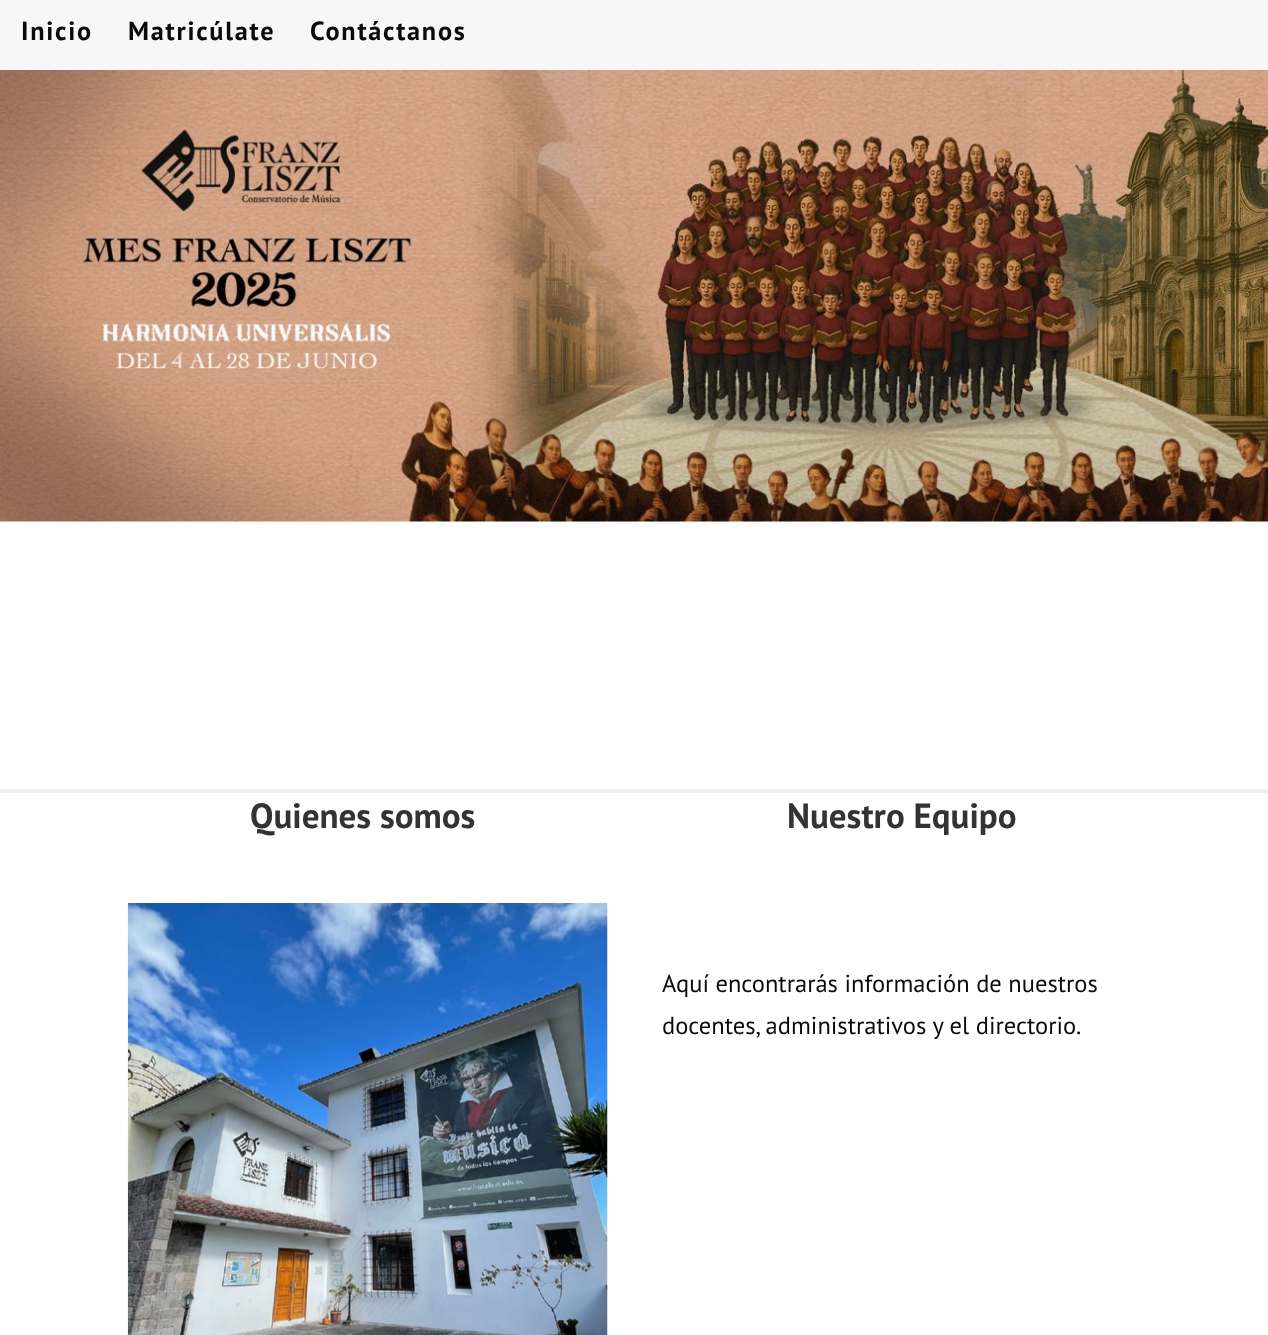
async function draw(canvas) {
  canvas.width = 1268
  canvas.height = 1335
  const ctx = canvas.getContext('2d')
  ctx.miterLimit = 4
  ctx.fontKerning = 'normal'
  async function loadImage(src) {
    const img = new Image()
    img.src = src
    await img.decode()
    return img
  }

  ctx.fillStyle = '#f0f0f0'
  ctx.fillRect(0, 0, 1268, 1335)
  ctx.fillStyle = '#f7f7f7'
  ctx.fillRect(0, 0, 1268, 70)
  ctx.letterSpacing = '1.75px'
  ctx.font = 'bold 26.25px PT Sans'
  ctx.fillStyle = '#0a0a0a'
  ctx.fillText('Inicio', 21, 40)
  ctx.fillText('Matricúlate', 128, 40)
  ctx.fillText('Contáctanos', 310, 40)
  ctx.fillStyle = '#fff'
  ctx.fillRect(0, 521, 1268, 268)
  ctx.drawImage(await loadImage('image0.png'), 0, 70, 1268, 452)
  ctx.fillRect(0, 793, 1268, 542)
  ctx.letterSpacing = '0px'
  ctx.font = 'bold 35px PT Sans'
  ctx.fillStyle = '#333'
  ctx.fillText('Quienes somos', 250, 828)
  ctx.drawImage(await loadImage('image1.png'), 127, 903, 481, 432)
  ctx.fillText('Nuestro Equipo', 787, 828)
  ctx.font = '24.5px PT Sans'
  ctx.fillStyle = '#0a0a0a'
  ctx.fillText('Aquí encontrarás información de nuestros', 662, 992)
  ctx.fillText('docentes, administrativos y el directorio.', 662, 1034)
}

draw(document.querySelector('canvas'))
